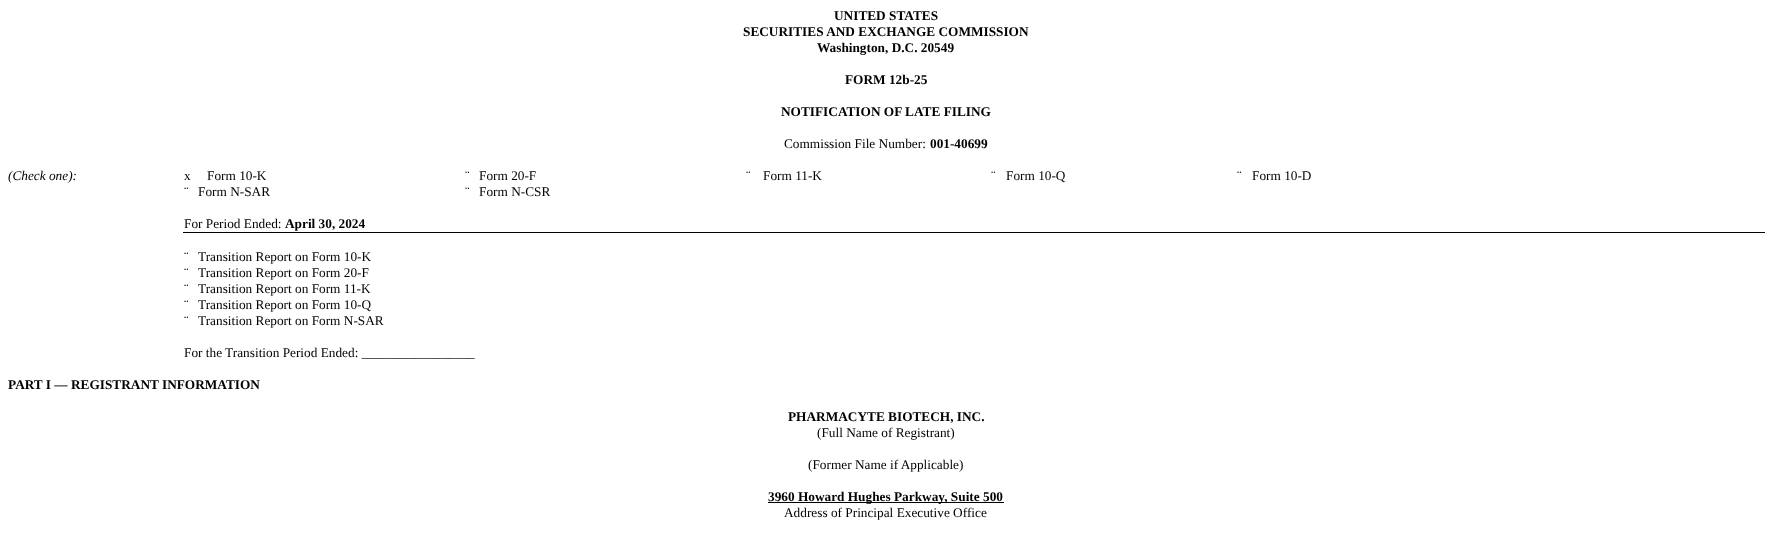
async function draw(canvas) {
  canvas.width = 1772
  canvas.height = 544
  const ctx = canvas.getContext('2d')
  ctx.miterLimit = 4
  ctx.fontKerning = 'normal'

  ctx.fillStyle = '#fff'
  ctx.fillRect(0, 0, 1772, 544)
  ctx.font = 'bold 13.3px Liberation Serif'
  ctx.fillStyle = '#000'
  ctx.fillText('UNITED STATES', 834, 20)
  ctx.fillText('SECURITIES AND EXCHANGE COMMISSION', 743, 36)
  ctx.fillText('Washington, D.C. 20549', 817, 52)
  ctx.fillText('FORM 12b-25', 845, 84)
  ctx.fillText('NOTIFICATION OF LATE FILING', 781, 116)
  ctx.font = '13.3px Liberation Serif'
  ctx.fillText('Commission File Number:', 784, 148)
  ctx.font = 'bold 13.3px Liberation Serif'
  ctx.fillText('001-40699', 930, 148)
  ctx.font = 'italic 13.3px Liberation Serif'
  ctx.fillText('(Check one):', 8, 180)
  ctx.font = '13.3px Liberation Serif'
  ctx.fillText('x', 184, 180)
  ctx.fillText('Form 10-K', 207, 180)
  ctx.fillText('¨', 465, 180)
  ctx.fillText('Form 20-F', 479, 180)
  ctx.fillText('¨', 746, 180)
  ctx.fillText('Form 11-K', 763, 180)
  ctx.fillText('¨', 991, 180)
  ctx.fillText('Form 10-Q', 1006, 180)
  ctx.fillText('¨', 1237, 180)
  ctx.fillText('Form 10-D', 1252, 180)
  ctx.fillText('¨', 184, 196)
  ctx.fillText('Form N-SAR', 198, 196)
  ctx.fillText('¨', 465, 196)
  ctx.fillText('Form N-CSR', 479, 196)
  ctx.fillRect(183, 232, 1582, 1)
  ctx.fillText('For Period Ended:', 184, 228)
  ctx.font = 'bold 13.3px Liberation Serif'
  ctx.fillText('April 30, 2024', 285, 228)
  ctx.font = '13.3px Liberation Serif'
  ctx.fillText('¨', 184, 261)
  ctx.fillText('Transition Report on Form 10-K', 198, 261)
  ctx.fillText('¨', 184, 277)
  ctx.fillText('Transition Report on Form 20-F', 198, 277)
  ctx.fillText('¨', 184, 293)
  ctx.fillText('Transition Report on Form 11-K', 198, 293)
  ctx.fillText('¨', 184, 309)
  ctx.fillText('Transition Report on Form 10-Q', 198, 309)
  ctx.fillText('¨', 184, 325)
  ctx.fillText('Transition Report on Form N-SAR', 198, 325)
  ctx.fillText('For the Transition Period Ended: _________________', 184, 357)
  ctx.font = 'bold 13.3px Liberation Serif'
  ctx.fillText('PART I — REGISTRANT INFORMATION', 8, 389)
  ctx.fillText('PHARMACYTE BIOTECH, INC.', 788, 421)
  ctx.font = '13.3px Liberation Serif'
  ctx.fillText('(Full Name of Registrant)', 817, 437)
  ctx.fillText('(Former Name if Applicable)', 808, 469)
  ctx.fillRect(768, 502, 236, 1)
  ctx.font = 'bold 13.3px Liberation Serif'
  ctx.fillText('3960 Howard Hughes Parkway, Suite 500', 768, 501)
  ctx.font = '13.3px Liberation Serif'
  ctx.fillText('Address of Principal Executive Office', 784, 517)
}

draw(document.querySelector('canvas'))
